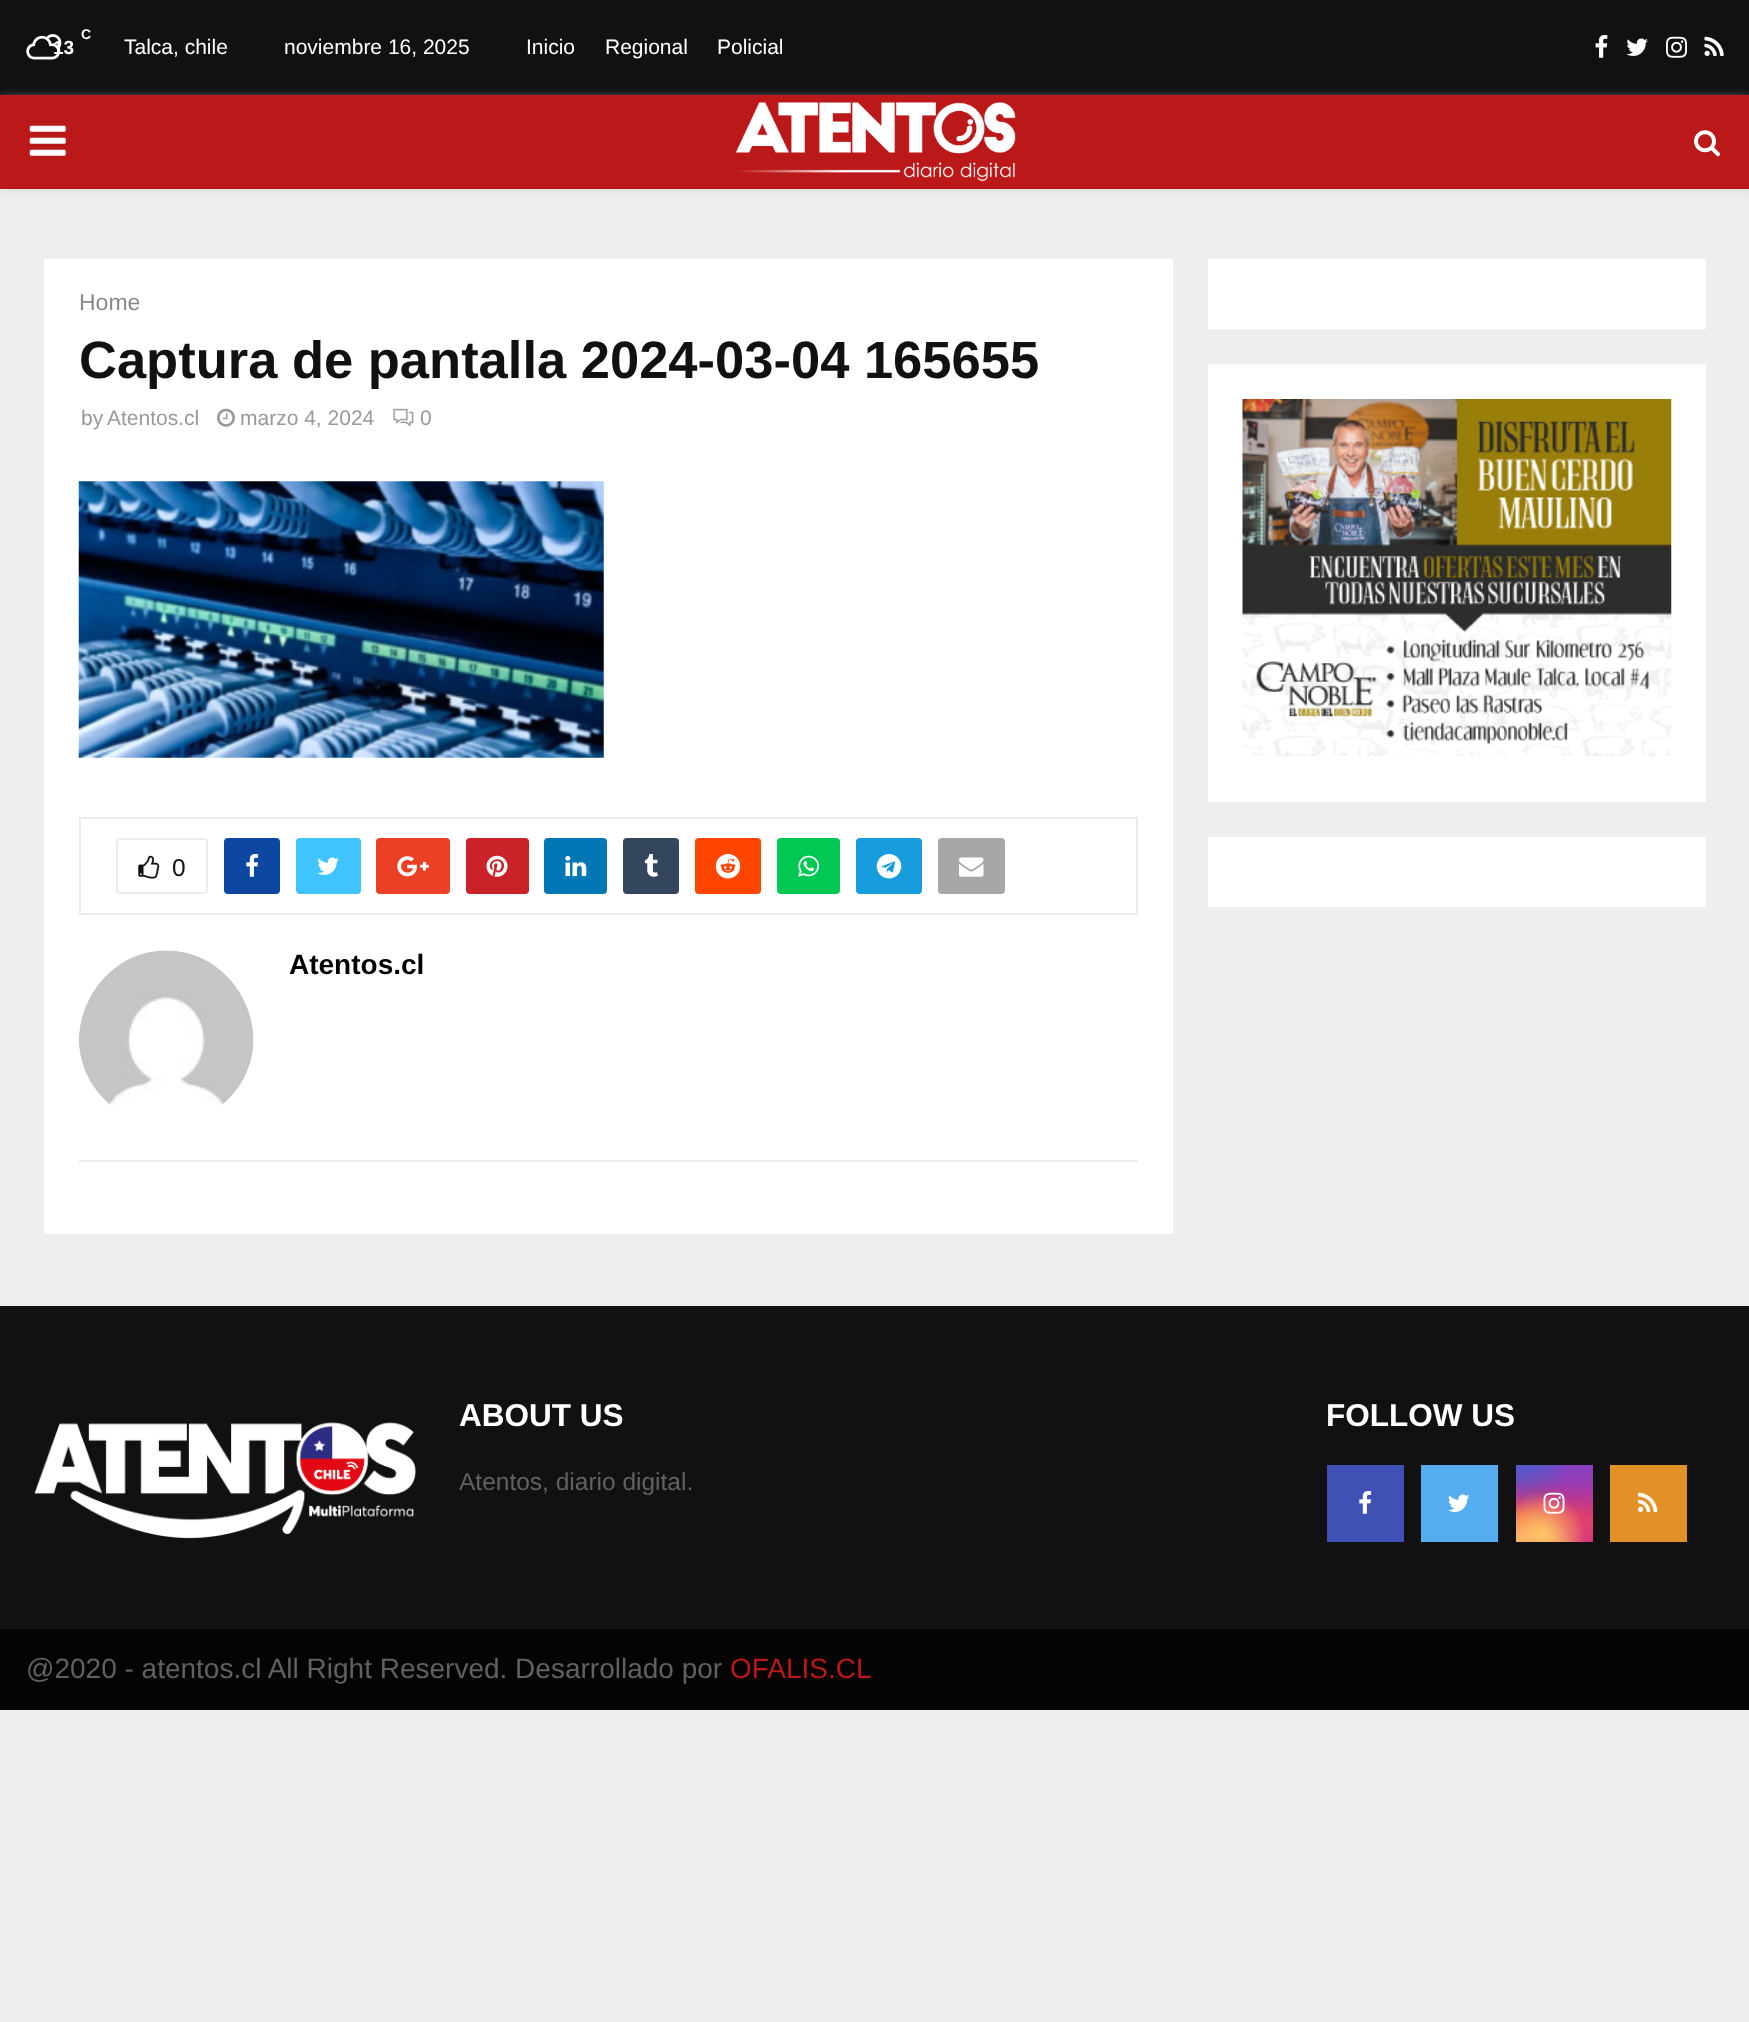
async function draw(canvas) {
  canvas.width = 1749
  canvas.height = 2022
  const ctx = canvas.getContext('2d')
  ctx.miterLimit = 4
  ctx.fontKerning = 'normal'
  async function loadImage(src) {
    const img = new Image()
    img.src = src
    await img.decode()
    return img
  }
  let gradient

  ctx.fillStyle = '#eee'
  ctx.fillRect(0, 0, 1749, 2022)
  ctx.fillStyle = '#111'
  ctx.fillRect(0, 0, 1749, 95)
  ctx.drawImage(await loadImage('image0.png'), 26, 34, 36, 26)
  ctx.font = 'bold 14px Liberation Sans'
  ctx.fillStyle = '#fff'
  ctx.fillText('C', 81, 39)
  ctx.font = 'bold 19px Liberation Sans'
  ctx.fillText('13', 53, 54)
  ctx.font = '21px Liberation Sans'
  ctx.fillText('Talca, chile', 124, 54)
  ctx.fillText('noviembre 16, 2025', 284, 54)
  ctx.fillText('Inicio', 526, 54)
  ctx.fillText('Regional', 605, 54)
  ctx.fillText('Policial', 717, 54)
  ctx.drawImage(await loadImage('image1.png'), 1595, 35, 13, 23)
  ctx.drawImage(await loadImage('image2.png'), 1626, 38, 22, 18)
  ctx.drawImage(await loadImage('image3.png'), 1666, 36, 21, 22)
  ctx.drawImage(await loadImage('image4.png'), 1704, 36, 20, 20)
  ctx.fillStyle = '#bebebe75'
  ctx.filter = 'blur(4.5px)'
  ctx.beginPath()
  ctx.rect(0, 96, 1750, 95)
  ctx.fill()
  ctx.filter = 'none'
  ctx.fillStyle = '#bb1919'
  ctx.fillRect(0, 95, 1749, 94)
  ctx.drawImage(await loadImage('image5.png'), 29, 125, 37, 31)
  ctx.drawImage(await loadImage('image6.png'), 735, 102, 281, 79)
  ctx.drawImage(await loadImage('image7.png'), 1694, 130, 26, 27)
  ctx.fillStyle = '#fff'
  ctx.fillRect(44, 259, 1129, 975)
  ctx.font = '23px Liberation Sans'
  ctx.fillStyle = '#888'
  ctx.fillText('Home', 79, 310)
  ctx.font = 'bold 52.5px Liberation Sans'
  ctx.fillStyle = '#111'
  ctx.fillText('Captura de pantalla 2024-03-04 165655', 79, 378)
  ctx.font = '21px Liberation Sans'
  ctx.fillStyle = '#999'
  ctx.fillText('by', 81, 425)
  ctx.fillText('Atentos.cl', 107, 425)
  ctx.drawImage(await loadImage('image8.png'), 217, 408, 18, 19)
  ctx.fillText('marzo 4, 2024', 240, 425)
  ctx.drawImage(await loadImage('image9.png'), 393, 408, 21, 19)
  ctx.fillText('0', 420, 425)
  ctx.drawImage(await loadImage('image10.png'), 78, 481, 526, 277)
  ctx.strokeStyle = '#ececec'
  ctx.lineWidth = 2
  ctx.strokeRect(80, 818, 1057, 96)
  ctx.beginPath()
  ctx.roundRect(117, 839, 90, 54, 3)
  ctx.stroke()
  ctx.drawImage(await loadImage('image11.png'), 138, 855, 22, 24)
  ctx.font = '24.5px Liberation Sans'
  ctx.fillStyle = '#111'
  ctx.fillText('0', 172, 876)
  ctx.fillStyle = '#0d47a1'
  ctx.beginPath()
  ctx.roundRect(224, 838, 56, 56, 4)
  ctx.fill()
  ctx.drawImage(await loadImage('image12.png'), 246, 854, 13, 23)
  ctx.fillStyle = '#40c4ff'
  ctx.beginPath()
  ctx.roundRect(296, 838, 65, 56, 4)
  ctx.fill()
  ctx.drawImage(await loadImage('image13.png'), 317, 857, 22, 18)
  ctx.fillStyle = '#eb4026'
  ctx.beginPath()
  ctx.roundRect(376, 838, 74, 56, 4)
  ctx.fill()
  ctx.drawImage(await loadImage('image14.png'), 397, 856, 32, 21)
  ctx.fillStyle = '#c92228'
  ctx.beginPath()
  ctx.roundRect(466, 838, 63, 56, 4)
  ctx.fill()
  ctx.drawImage(await loadImage('image15.png'), 486, 855, 22, 22)
  ctx.fillStyle = '#0077b5'
  ctx.beginPath()
  ctx.roundRect(544, 838, 63, 56, 4)
  ctx.fill()
  ctx.drawImage(await loadImage('image16.png'), 565, 856, 22, 21)
  ctx.fillStyle = '#34465d'
  ctx.beginPath()
  ctx.roundRect(623, 838, 56, 56, 4)
  ctx.fill()
  ctx.drawImage(await loadImage('image17.png'), 644, 854, 14, 23)
  ctx.fillStyle = '#ff4500'
  ctx.beginPath()
  ctx.roundRect(695, 838, 66, 56, 4)
  ctx.fill()
  ctx.drawImage(await loadImage('image18.png'), 715, 854, 26, 25)
  ctx.fillStyle = '#00c853'
  ctx.beginPath()
  ctx.roundRect(777, 838, 63, 56, 4)
  ctx.fill()
  ctx.drawImage(await loadImage('image19.png'), 798, 855, 21, 22)
  ctx.fillStyle = '#179cde'
  ctx.beginPath()
  ctx.roundRect(856, 838, 66, 56, 4)
  ctx.fill()
  ctx.drawImage(await loadImage('image20.png'), 876, 854, 26, 25)
  ctx.fillStyle = '#a7a7a7'
  ctx.beginPath()
  ctx.roundRect(938, 838, 67, 56, 4)
  ctx.fill()
  ctx.drawImage(await loadImage('image21.png'), 959, 857, 25, 20)
  ctx.fillStyle = '#ececec'
  ctx.fillRect(79, 1160, 1059, 2)
  ctx.drawImage(await loadImage('image22.png'), 79, 950, 175, 155)
  ctx.font = 'bold 28px Liberation Sans'
  ctx.fillStyle = '#000'
  ctx.fillText('Atentos.cl', 289, 974)
  ctx.fillStyle = '#fff'
  ctx.fillRect(1208, 259, 498, 70)
  ctx.fillRect(1208, 364, 498, 438)
  ctx.drawImage(await loadImage('image23.png'), 1242, 399, 430, 357)
  ctx.fillRect(1208, 837, 498, 70)
  ctx.fillStyle = '#111'
  ctx.fillRect(0, 1306, 1749, 323)
  ctx.font = 'bold 31.5px Liberation Sans'
  ctx.fillStyle = '#fff'
  ctx.fillText('ABOUT US', 459, 1426)
  ctx.font = '24.5px Liberation Sans'
  ctx.fillStyle = '#616161'
  ctx.fillText('Atentos, diario digital.', 459, 1490)
  ctx.font = 'bold 31.5px Liberation Sans'
  ctx.fillStyle = '#fff'
  ctx.fillText('FOLLOW US', 1326, 1426)
  ctx.fillStyle = '#3f51b5'
  ctx.fillRect(1327, 1465, 77, 77)
  ctx.drawImage(await loadImage('image24.png'), 1359, 1491, 13, 23)
  ctx.fillStyle = '#55acee'
  ctx.fillRect(1421, 1465, 77, 77)
  ctx.drawImage(await loadImage('image25.png'), 1448, 1494, 22, 18)
  gradient = ctx.createLinearGradient(1554, 1465, 1554, 1542)
  gradient.addColorStop(0, '#6559ca')
  gradient.addColorStop(0.3, '#bc318f')
  gradient.addColorStop(0.5, '#e33f5f')
  gradient.addColorStop(0.7, '#f77638')
  gradient.addColorStop(1, '#fec66d')
  ctx.fillStyle = gradient
  ctx.fillRect(1516, 1465, 77, 77)
  gradient = ctx.createRadialGradient(1593, 1542, 0, 1593, 1542, 109)
  gradient.addColorStop(0, '#d9317a')
  gradient.addColorStop(1, '#d9317a00')
  ctx.fillStyle = gradient
  ctx.fillRect(1516, 1465, 77, 77)
  gradient = ctx.createRadialGradient(1562, 718.97, 0, 1562, 718.97, 65)
  gradient.addColorStop(0, '#893dc2')
  gradient.addColorStop(0.5, '#893dc200')
  ctx.fillStyle = gradient
  ctx.beginPath()
  ctx.rect(1534, 1465, 56, 48)
  ctx.save()
  ctx.clip()
  ctx.scale(1, 131 / 65)
  ctx.fillRect(0, 0, 1749, 1004)
  ctx.restore()
  gradient = ctx.createRadialGradient(1593, 1465, 0, 1593, 1465, 109)
  gradient.addColorStop(0, '#893dc2')
  gradient.addColorStop(0.5, '#893dc200')
  ctx.fillStyle = gradient
  ctx.fillRect(1545, 1465, 48, 53)
  gradient = ctx.createRadialGradient(1531, 761.12, 0, 1531, 761.12, 87)
  gradient.addColorStop(0, '#5258cf')
  gradient.addColorStop(0.5, '#5258cf00')
  ctx.fillStyle = gradient
  ctx.beginPath()
  ctx.rect(1516, 1465, 51, 41)
  ctx.save()
  ctx.clip()
  ctx.scale(1, 163 / 87)
  ctx.fillRect(0, 0, 1749, 1080)
  ctx.restore()
  gradient = ctx.createRadialGradient(1516, 1158.93, 0, 1516, 1158.93, 109)
  gradient.addColorStop(0, '#5258cf')
  gradient.addColorStop(0.5, '#5258cf00')
  ctx.fillStyle = gradient
  ctx.beginPath()
  ctx.rect(1516, 1465, 49, 48)
  ctx.save()
  ctx.clip()
  ctx.scale(1, 136 / 109)
  ctx.fillRect(0, 0, 1749, 1621)
  ctx.restore()
  gradient = ctx.createRadialGradient(1516, 1573, 0, 1516, 1573, 132)
  gradient.addColorStop(0, '#fec564')
  gradient.addColorStop(0.5, '#fec56400')
  ctx.fillStyle = gradient
  ctx.fillRect(1516, 1508, 56, 34)
  gradient = ctx.createRadialGradient(1542, 1534, 0, 1542, 1534, 85)
  gradient.addColorStop(0, '#fec564')
  gradient.addColorStop(0.5, '#fec56400')
  ctx.fillStyle = gradient
  ctx.fillRect(1516, 1492, 68, 50)
  ctx.drawImage(await loadImage('image26.png'), 1543, 1492, 22, 22)
  ctx.fillStyle = '#e19126'
  ctx.fillRect(1610, 1465, 77, 77)
  ctx.drawImage(await loadImage('image27.png'), 1638, 1492, 20, 20)
  ctx.drawImage(await loadImage('image28.png'), 34, 1422, 382, 117)
  ctx.fillStyle = '#040404'
  ctx.fillRect(0, 1629, 1749, 81)
  ctx.font = '28px Liberation Sans'
  ctx.fillStyle = '#616161'
  ctx.fillText('@2020 - atentos.cl All Right Reserved. Desarrollado por', 26, 1678)
  ctx.fillStyle = '#bb1919'
  ctx.fillText('OFALIS.CL', 730, 1678)
}

draw(document.querySelector('canvas'))
